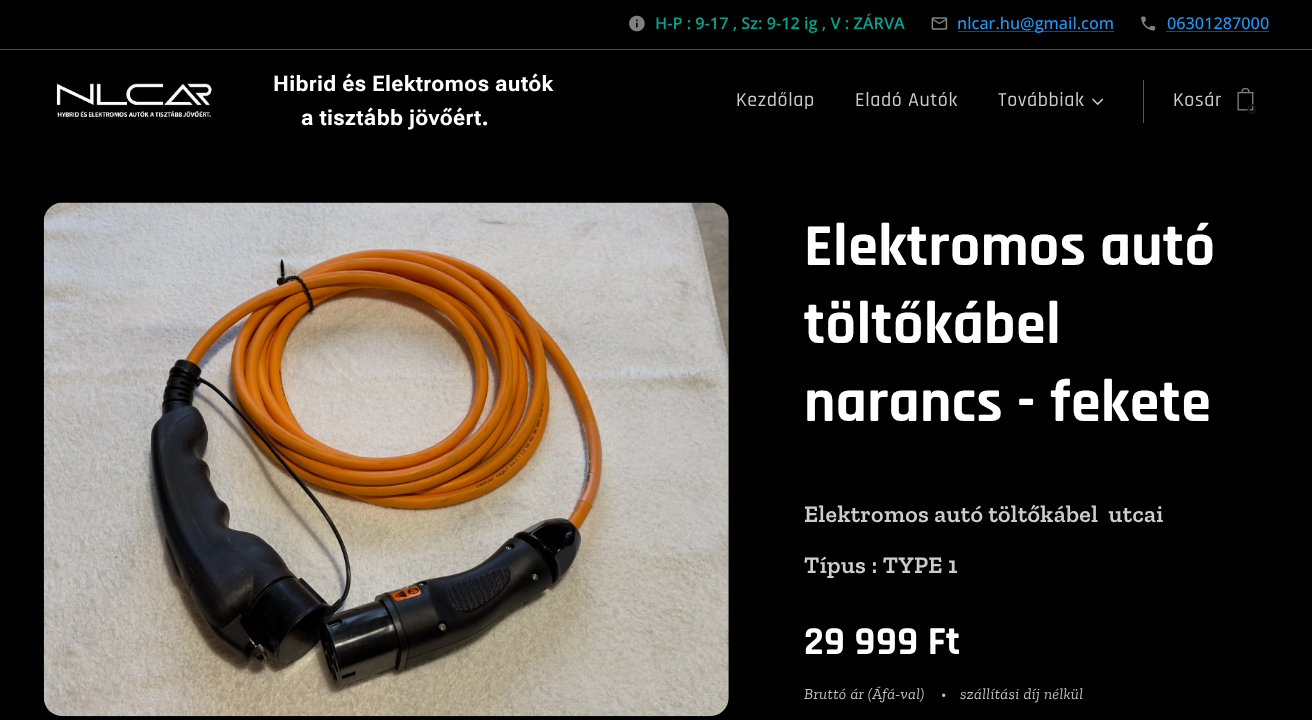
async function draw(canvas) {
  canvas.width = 1312
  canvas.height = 720
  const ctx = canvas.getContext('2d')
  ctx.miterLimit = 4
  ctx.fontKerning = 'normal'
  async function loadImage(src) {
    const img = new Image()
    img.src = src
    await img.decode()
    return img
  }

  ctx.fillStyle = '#000'
  ctx.fillRect(0, 0, 1312, 720)
  ctx.drawImage(await loadImage('image0.png'), 629, 15, 16, 17)
  ctx.font = '600 16.25px Open Sans'
  ctx.fillStyle = '#06a48d'
  ctx.fillText('H-P : 9-17 , Sz: 9-12 ig , V : ZÁRVA', 655, 29)
  ctx.drawImage(await loadImage('image1.png'), 931, 17, 17, 13)
  ctx.fillStyle = '#114b7a'
  ctx.fillRect(958, 31, 156, 1)
  ctx.font = '500 16.25px Open Sans'
  ctx.fillStyle = '#2196f3'
  ctx.fillText('nlcar.hu@gmail.com', 957, 29)
  ctx.drawImage(await loadImage('image2.png'), 1141, 16, 15, 15)
  ctx.fillText('06301287000', 1167, 29)
  ctx.fillStyle = '#114b7a'
  ctx.fillRect(1166, 31, 103, 1)
  ctx.fillStyle = '#4d4d4d'
  ctx.fillRect(0, 49, 1312, 1)
  ctx.drawImage(await loadImage('image3.png'), 56, 83, 156, 34)
  ctx.letterSpacing = '0.35px'
  ctx.font = 'bold 21.5px Roboto Flex'
  ctx.fillStyle = '#fff'
  ctx.fillText('Hibrid és Elektromos autók', 273, 91)
  ctx.fillText('a tisztább jövőért.', 301, 125)
  ctx.letterSpacing = '0.6px'
  ctx.font = '500 20px Rajdhani'
  ctx.fillStyle = '#ccc'
  ctx.fillText('Kezdőlap', 736, 106)
  ctx.fillText('Eladó Autók', 855, 106)
  ctx.fillText('Továbbiak', 998, 106)
  ctx.drawImage(await loadImage('image4.png'), 1092, 98, 12, 7)
  ctx.fillStyle = '#595959'
  ctx.fillRect(1143, 80, 1, 43)
  ctx.fillStyle = '#ccc'
  ctx.fillText('Kosár', 1173, 106)
  ctx.drawImage(await loadImage('image5.png'), 1237, 88, 17, 23)
  ctx.letterSpacing = '0px'
  ctx.font = 'bold 14px Montserrat'
  ctx.fillStyle = '#141414'
  ctx.fillText('0', 1247, 114)
  ctx.drawImage(await loadImage('image6.png'), 43, 202, 686, 515)
  ctx.letterSpacing = '0.35px'
  ctx.font = 'bold 60px Rajdhani'
  ctx.fillStyle = '#fff'
  ctx.fillText('Elektromos autó', 804, 265)
  ctx.fillText('töltőkábel', 804, 343)
  ctx.fillText('narancs - fekete', 804, 421)
  ctx.font = '600 24px Zilla Slab'
  ctx.fillStyle = '#ccc'
  ctx.fillText('Elektromos autó töltőkábel  utcai', 804, 522)
  ctx.fillText('Típus : TYPE 1', 804, 573)
  ctx.font = 'bold 40px Rajdhani'
  ctx.fillStyle = '#fff'
  ctx.fillText('29 999 Ft', 804, 654)
  ctx.font = 'italic 15.5px Zilla Slab'
  ctx.fillStyle = '#bfbfbf'
  ctx.fillText('Bruttó ár (Áfá-val)', 804, 699)
  ctx.fillText('•', 941, 699)
  ctx.fillText('szállítási díj nélkül', 960, 699)
}

draw(document.querySelector('canvas'))
